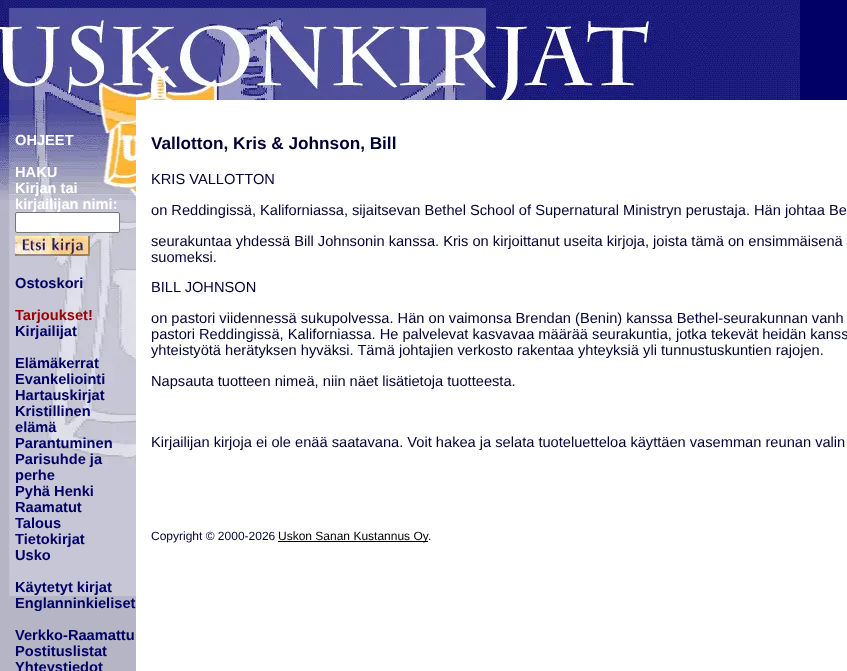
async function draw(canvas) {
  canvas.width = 847
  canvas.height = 671
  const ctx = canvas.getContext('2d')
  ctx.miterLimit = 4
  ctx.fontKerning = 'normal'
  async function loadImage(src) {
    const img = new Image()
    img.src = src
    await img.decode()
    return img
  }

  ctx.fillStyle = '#fff'
  ctx.fillRect(0, 0, 847, 671)
  ctx.fillStyle = '#006'
  ctx.fillRect(800, 0, 47, 100)
  ctx.drawImage(await loadImage('image0.png'), 0, 0, 800, 100)
  ctx.drawImage(await loadImage('image1.png'), 0, 100, 136, 571)
  ctx.font = 'bold 14.65px Liberation Sans'
  ctx.fillStyle = '#fff'
  ctx.fillText('OHJEET', 15, 145)
  ctx.fillText('HAKU', 15, 177)
  ctx.fillText('Kirjan tai', 15, 193)
  ctx.fillText('kirjailijan nimi:', 15, 209)
  ctx.beginPath()
  ctx.roundRect(15.5, 212.5, 104, 20, 1.5)
  ctx.fill()
  ctx.strokeStyle = '#767676'
  ctx.stroke()
  ctx.drawImage(await loadImage('image2.png'), 15, 236, 75, 20)
  ctx.fillStyle = '#006'
  ctx.fillText('Ostoskori', 15, 288)
  ctx.fillStyle = '#900'
  ctx.fillText('Tarjoukset!', 15, 320)
  ctx.fillStyle = '#006'
  ctx.fillText('Kirjailijat', 15, 336)
  ctx.fillText('Elämäkerrat', 15, 368)
  ctx.fillText('Evankeliointi', 15, 384)
  ctx.fillText('Hartauskirjat', 15, 400)
  ctx.fillText('Kristillinen', 15, 416)
  ctx.fillText('elämä', 15, 432)
  ctx.fillText('Parantuminen', 15, 448)
  ctx.fillText('Parisuhde ja', 15, 464)
  ctx.fillText('perhe', 15, 480)
  ctx.fillText('Pyhä Henki', 15, 496)
  ctx.fillText('Raamatut', 15, 512)
  ctx.fillText('Talous', 15, 528)
  ctx.fillText('Tietokirjat', 15, 544)
  ctx.fillText('Usko', 15, 560)
  ctx.fillText('Käytetyt kirjat', 15, 592)
  ctx.fillText('Englanninkieliset', 15, 608)
  ctx.fillText('Verkko-Raamattu', 15, 640)
  ctx.fillText('Postituslistat', 15, 656)
  ctx.fillText('Yhteystiedot', 15, 672)
  ctx.font = 'bold 17.2px Liberation Sans'
  ctx.fillStyle = '#003'
  ctx.fillText('Vallotton, Kris & Johnson, Bill', 151, 149)
  ctx.font = '14.65px Liberation Sans'
  ctx.fillText('KRIS VALLOTTON', 151, 184)
  ctx.fillText('on Reddingissä, Kaliforniassa, sijaitsevan Bethel School of Supernatural Ministryn perustaja. Hän johtaa Be', 151, 215)
  ctx.fillText('seurakuntaa yhdessä Bill Johnsonin kanssa. Kris on kirjoittanut useita kirjoja, joista tämä on ensimmäisenä', 151, 246)
  ctx.fillText('suomeksi.', 151, 262)
  ctx.fillText('BILL JOHNSON', 151, 292)
  ctx.fillText('on pastori viidennessä sukupolvessa. Hän on vaimonsa Brendan (Benin) kanssa Bethel-seurakunnan vanh', 151, 323)
  ctx.fillText('pastori Reddingissä, Kaliforniassa. He palvelevat kasvavaa määrää seurakuntia, jotka tekevät heidän kanss', 151, 339)
  ctx.fillText('yhteistyötä herätyksen hyväksi. Tämä johtajien verkosto rakentaa yhteyksiä yli tunnustuskuntien rajojen.', 151, 355)
  ctx.fillText('Napsauta tuotteen nimeä, niin näet lisätietoja tuotteesta.', 151, 386)
  ctx.fillText('Kirjailijan kirjoja ei ole enää saatavana. Voit hakea ja selata tuoteluetteloa käyttäen vasemman reunan valin', 151, 447)
  ctx.font = '12px Liberation Sans'
  ctx.fillText('Copyright © 2000-2026', 151, 540)
  ctx.fillStyle = '#000'
  ctx.fillRect(278, 541, 150, 1)
  ctx.fillText('Uskon Sanan Kustannus Oy', 278, 540)
  ctx.fillStyle = '#003'
  ctx.fillText('.', 428, 540)
}

draw(document.querySelector('canvas'))
